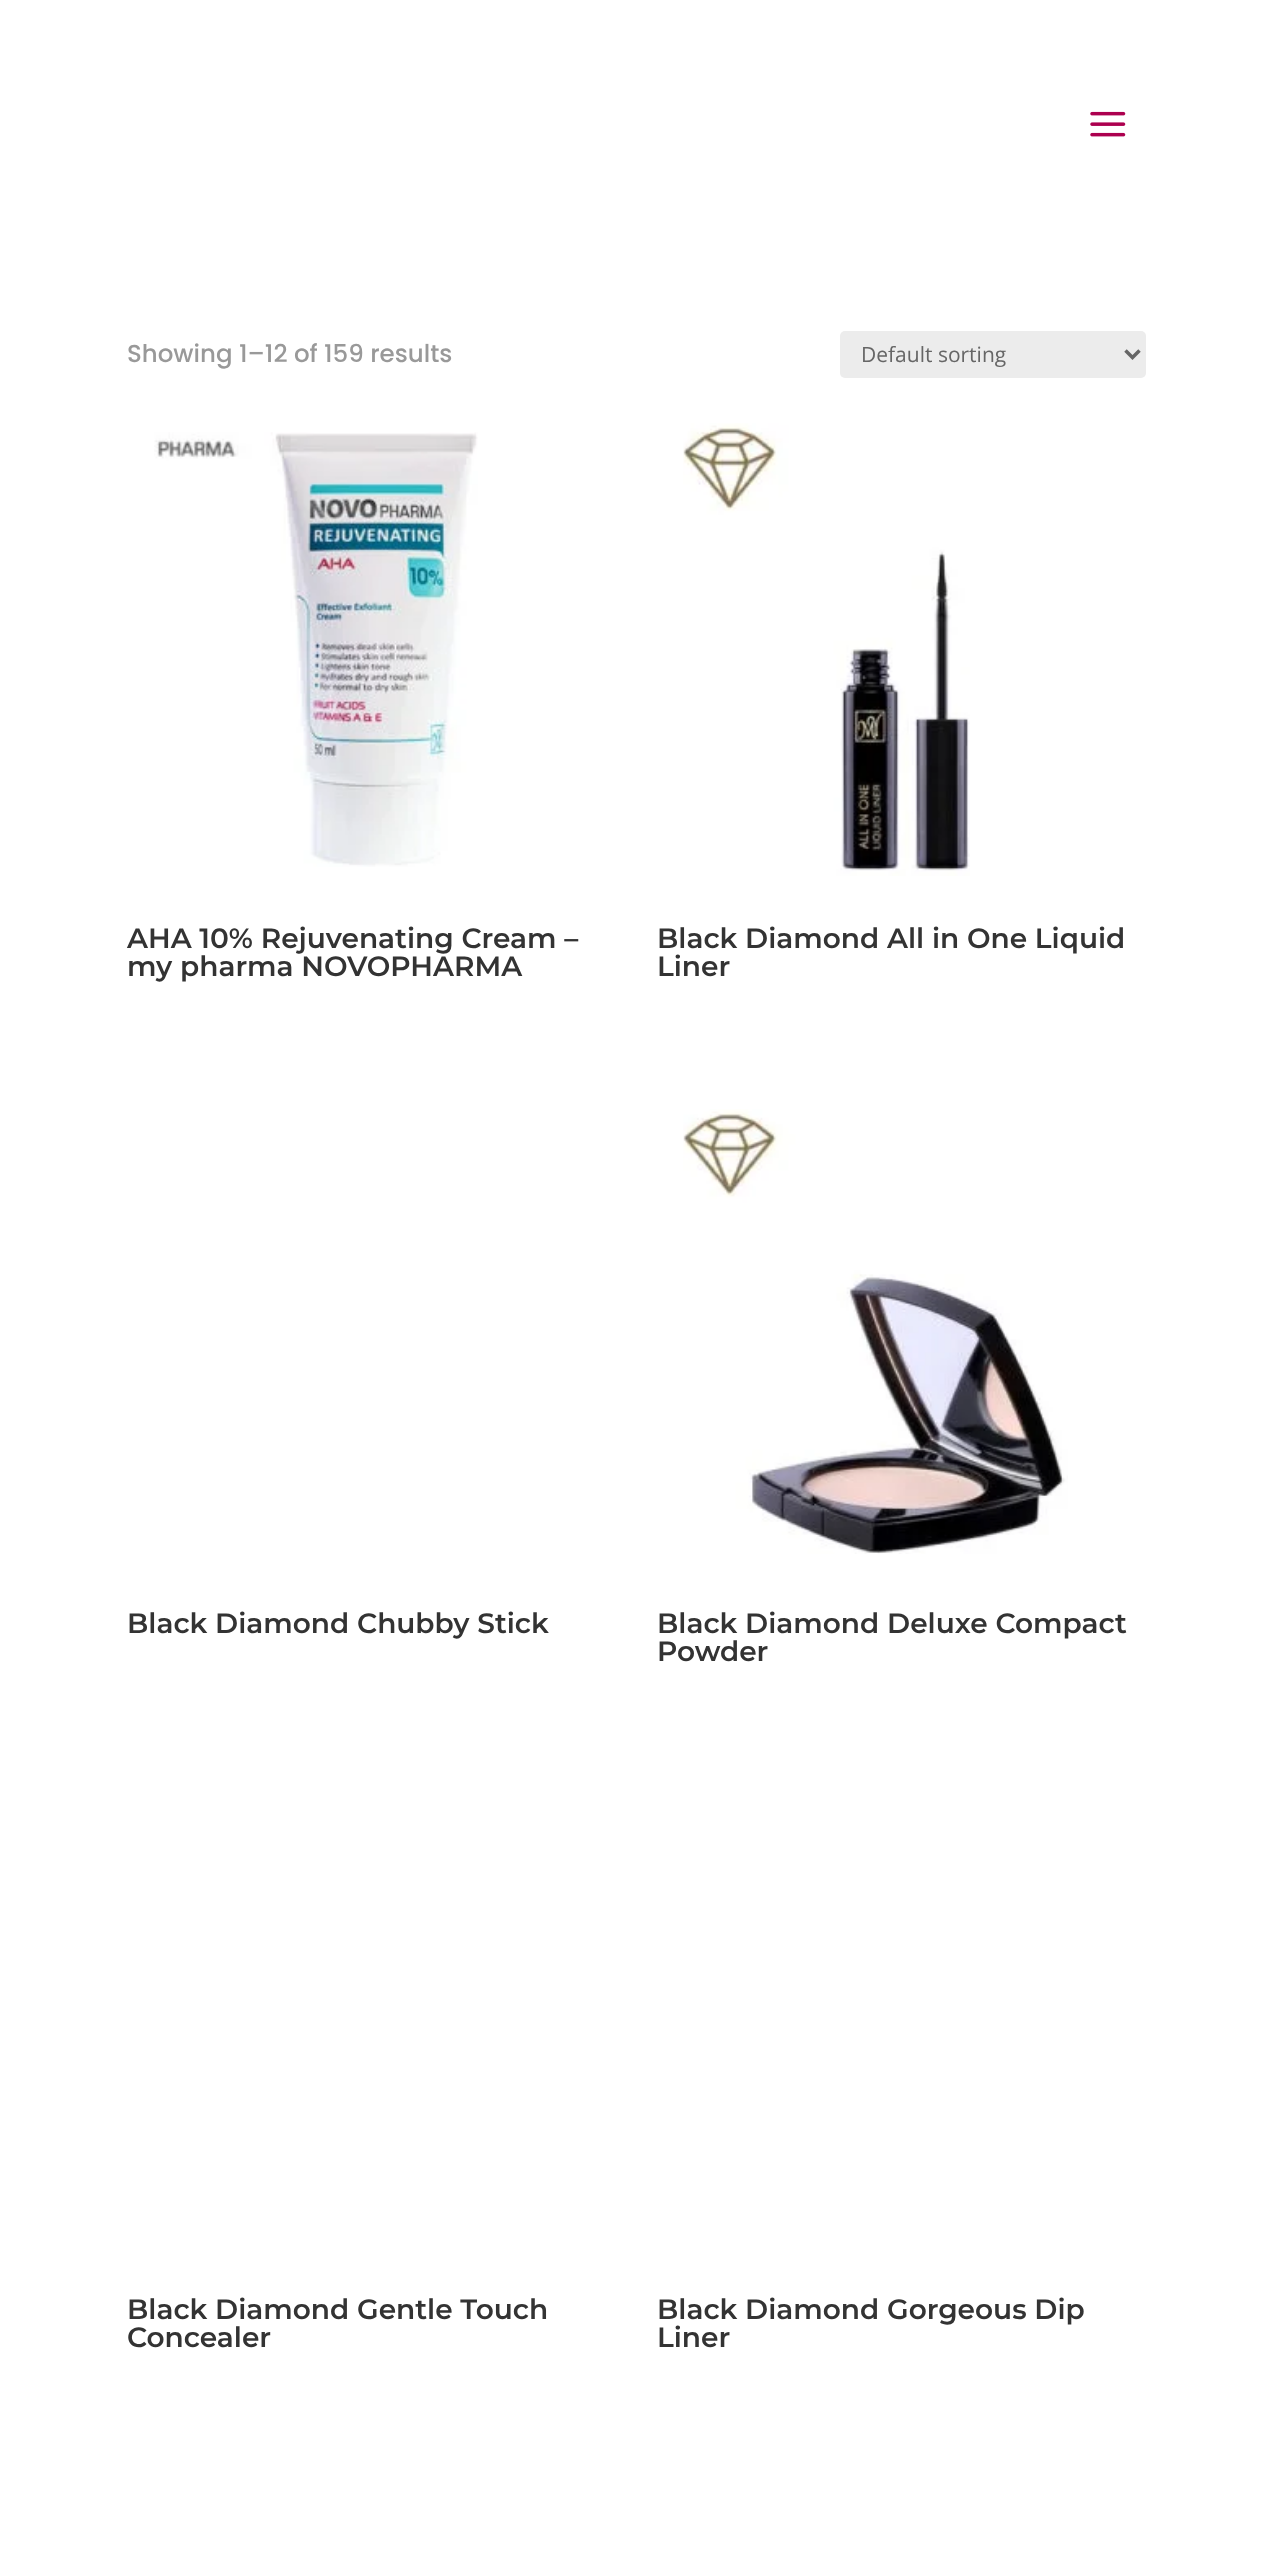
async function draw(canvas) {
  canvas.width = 1273
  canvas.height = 2557
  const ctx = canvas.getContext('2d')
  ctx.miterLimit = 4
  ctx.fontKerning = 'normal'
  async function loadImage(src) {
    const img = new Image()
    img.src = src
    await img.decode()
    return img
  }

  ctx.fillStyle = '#fff'
  ctx.fillRect(0, 0, 1273, 2557)
  ctx.drawImage(await loadImage('image0.png'), 1090, 111, 36, 26)
  ctx.font = '500 24.5px Poppins'
  ctx.fillStyle = '#999'
  ctx.fillText('Showing 1–12 of 159 results', 127, 362)
  ctx.fillStyle = '#ececec'
  ctx.beginPath()
  ctx.roundRect(840, 331, 306, 47, 5)
  ctx.fill()
  ctx.beginPath()
  ctx.moveTo(1125.5, 350.5)
  ctx.lineTo(1132.5, 357.5)
  ctx.lineTo(1139.5, 350.5)
  ctx.strokeStyle = '#666'
  ctx.lineWidth = 3.5
  ctx.stroke()
  ctx.font = '21px Open Sans'
  ctx.fillStyle = '#666'
  ctx.fillText('Default sorting', 861, 362)
  ctx.drawImage(await loadImage('image1.png'), 154, 432, 324, 435)
  ctx.font = '600 28px Montserrat'
  ctx.fillStyle = '#333'
  ctx.fillText('AHA 10% Rejuvenating Cream –', 127, 948)
  ctx.fillText('my pharma NOVOPHARMA', 127, 976)
  ctx.drawImage(await loadImage('image2.png'), 683, 423, 287, 453)
  ctx.fillText('Black Diamond All in One Liquid', 657, 948)
  ctx.fillText('Liner', 657, 976)
  ctx.fillText('Black Diamond Chubby Stick', 127, 1633)
  ctx.drawImage(await loadImage('image3.png'), 683, 1109, 385, 445)
  ctx.fillText('Black Diamond Deluxe Compact', 657, 1633)
  ctx.fillText('Powder', 657, 1661)
  ctx.fillText('Black Diamond Gentle Touch', 127, 2319)
  ctx.fillText('Concealer', 127, 2347)
  ctx.fillText('Black Diamond Gorgeous Dip', 657, 2319)
  ctx.fillText('Liner', 657, 2347)
}

draw(document.querySelector('canvas'))
